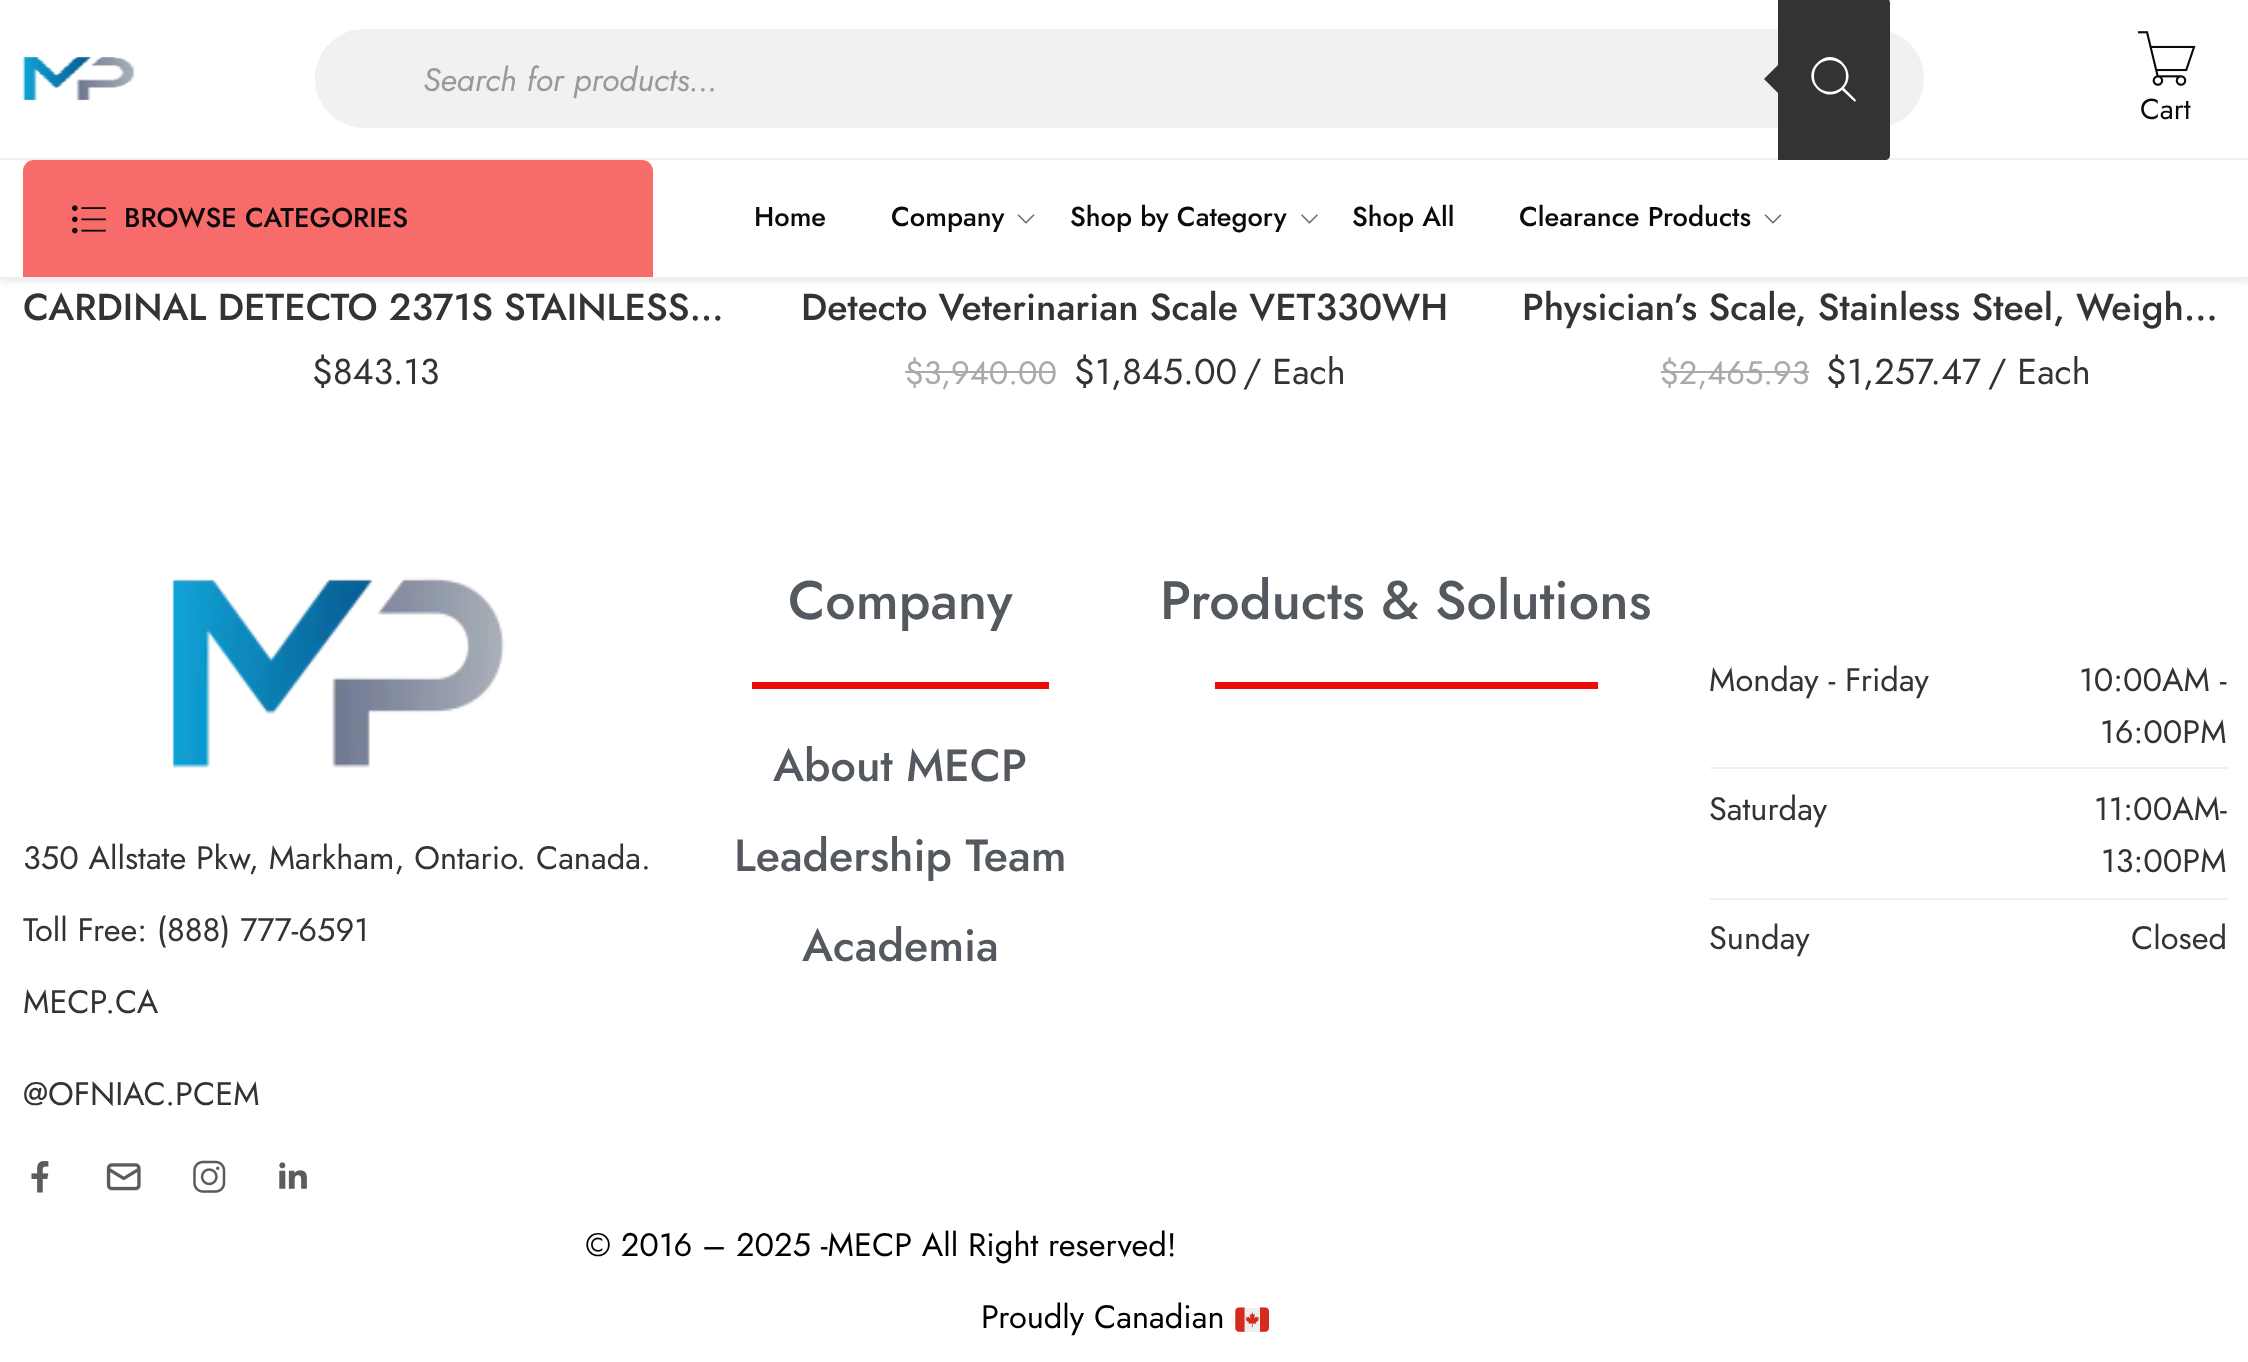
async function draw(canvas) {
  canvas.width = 2248
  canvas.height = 1362
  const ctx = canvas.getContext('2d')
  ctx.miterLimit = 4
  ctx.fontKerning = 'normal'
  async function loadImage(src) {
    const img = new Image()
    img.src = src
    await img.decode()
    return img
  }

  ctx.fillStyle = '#fff'
  ctx.fillRect(0, 0, 2248, 1362)
  ctx.fillStyle = '#0000001a'
  ctx.filter = 'blur(3.5px)'
  ctx.beginPath()
  ctx.rect(0, 2, 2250, 279)
  ctx.fill()
  ctx.filter = 'none'
  ctx.fillStyle = '#fff'
  ctx.fillRect(0, 0, 2248, 277)
  ctx.drawImage(await loadImage('image0.png'), 22, 56, 113, 45)
  ctx.fillStyle = '#f1f1f1'
  ctx.beginPath()
  ctx.roundRect(315, 29, 1609, 99, 49.5)
  ctx.fill()
  ctx.font = 'italic 32.6px Jost'
  ctx.fillStyle = '#999'
  ctx.fillText('Search for products...', 423, 91)
  ctx.fillStyle = '#efefef'
  ctx.fillRect(0, 158, 2248, 2)
  ctx.fillStyle = '#333'
  ctx.beginPath()
  ctx.moveTo(1778, -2)
  ctx.lineTo(1885, -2)
  ctx.bezierCurveTo(1888, -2, 1890, 0, 1890, 3)
  ctx.lineTo(1890, 155)
  ctx.bezierCurveTo(1890, 158, 1888, 160, 1885, 160)
  ctx.lineTo(1778, 160)
  ctx.closePath()
  ctx.fill()
  ctx.beginPath()
  ctx.moveTo(1782, 61)
  ctx.lineTo(1782, 97)
  ctx.lineTo(1764, 79)
  ctx.closePath()
  ctx.fill()
  ctx.fillStyle = '#fff'
  ctx.beginPath()
  ctx.moveTo(1856, 100)
  ctx.lineTo(1844, 88)
  ctx.bezierCurveTo(1859, 71, 1834, 45, 1817, 63)
  ctx.bezierCurveTo(1800, 80, 1825, 105, 1842, 90)
  ctx.lineTo(1855, 102)
  ctx.closePath()
  ctx.moveTo(1814, 76)
  ctx.bezierCurveTo(1814, 55, 1846, 55, 1846, 76)
  ctx.bezierCurveTo(1846, 97, 1814, 97, 1814, 76)
  ctx.closePath()
  ctx.fill()
  ctx.drawImage(await loadImage('image1.png'), 2137, 31, 59, 55)
  ctx.font = '29px Jost'
  ctx.fillStyle = '#0a0a0a'
  ctx.fillText('Cart', 2140, 119)
  ctx.fillStyle = '#efefef'
  ctx.fillRect(0, 277, 2248, 2)
  ctx.fillStyle = '#f76b6a'
  ctx.beginPath()
  ctx.roundRect(23, 160, 630, 117, [11, 11, 0, 0])
  ctx.fill()
  ctx.drawImage(await loadImage('image2.png'), 72, 205, 34, 29)
  ctx.font = '500 27.25px Jost'
  ctx.fillStyle = '#0a0a0a'
  ctx.fillText('BROWSE CATEGORIES', 124, 227)
  ctx.fillText('Home', 754, 226)
  ctx.fillText('Company', 891, 226)
  ctx.drawImage(await loadImage('image3.png'), 1017, 214, 18, 10)
  ctx.fillText('Shop by Category', 1070, 226)
  ctx.drawImage(await loadImage('image4.png'), 1301, 214, 17, 10)
  ctx.fillText('Shop All', 1352, 226)
  ctx.fillText('Clearance Products', 1519, 226)
  ctx.drawImage(await loadImage('image3.png'), 1764, 214, 18, 10)
  ctx.font = '500 37.5px Jost'
  ctx.fillStyle = '#333'
  ctx.fillText('CARDINAL DETECTO 2371S STAINLESS…', 23, 320)
  ctx.font = '36px Jost'
  ctx.fillText('$843.13', 312, 384)
  ctx.font = '500 37.5px Jost'
  ctx.fillText('Detecto Veterinarian Scale VET330WH', 801, 320)
  ctx.font = '32.5px Jost'
  ctx.fillStyle = '#aaa'
  ctx.fillText('$3,940.00', 905, 384)
  ctx.fillRect(905, 371, 150, 2)
  ctx.font = '36px Jost'
  ctx.fillStyle = '#333'
  ctx.fillText('$1,845.00', 1074, 384)
  ctx.fillText('/ Each', 1243, 384)
  ctx.font = '500 37.5px Jost'
  ctx.fillText('Physician’s Scale, Stainless Steel, Weigh…', 1522, 320)
  ctx.font = '32.5px Jost'
  ctx.fillStyle = '#aaa'
  ctx.fillText('$2,465.93', 1660, 384)
  ctx.fillRect(1661, 371, 148, 2)
  ctx.font = '36px Jost'
  ctx.fillStyle = '#333'
  ctx.fillText('$1,257.47', 1826, 384)
  ctx.fillText('/ Each', 1988, 384)
  ctx.drawImage(await loadImage('image5.png'), 172, 577, 333, 191)
  ctx.font = '32.6px Jost'
  ctx.fillText('350 Allstate Pkw, Markham, Ontario. Canada.', 23, 869)
  ctx.fillText('Toll Free: (888) 777-6591', 23, 941)
  ctx.fillText('MECP.CA', 23, 1013)
  ctx.fillText('@OFNI', 23, 1105)
  ctx.fillText('AC.PCEM', 123, 1105)
  ctx.drawImage(await loadImage('image6.png'), 31, 1161, 18, 32)
  ctx.drawImage(await loadImage('image7.png'), 106, 1163, 35, 28)
  ctx.drawImage(await loadImage('image8.png'), 193, 1160, 33, 33)
  ctx.drawImage(await loadImage('image9.png'), 279, 1162, 28, 27)
  ctx.font = '500 54px Jost'
  ctx.fillStyle = '#54595f'
  ctx.fillText('Company', 788, 619)
  ctx.fillStyle = '#ef0a0a'
  ctx.fillRect(752, 682, 297, 7)
  ctx.font = '500 45px Jost'
  ctx.fillStyle = '#54595f'
  ctx.fillText('About MECP', 773, 781)
  ctx.fillText('Leadership Team', 734, 871)
  ctx.fillText('Academia', 802, 961)
  ctx.font = '500 54px Jost'
  ctx.fillText('Products & Solutions', 1160, 619)
  ctx.fillStyle = '#ef0a0a'
  ctx.fillRect(1215, 682, 383, 7)
  ctx.fillStyle = '#efefef'
  ctx.fillRect(1710, 767, 518, 2)
  ctx.font = '32.6px Jost'
  ctx.fillStyle = '#333'
  ctx.fillText('Monday - Friday', 1709, 691)
  ctx.fillText('10:00AM -', 2079, 691)
  ctx.fillText('16:00PM', 2100, 743)
  ctx.fillStyle = '#efefef'
  ctx.fillRect(1710, 898, 518, 2)
  ctx.fillStyle = '#333'
  ctx.fillText('Saturday', 1709, 820)
  ctx.fillText('11:00AM-', 2094, 820)
  ctx.fillText('13:00PM', 2101, 872)
  ctx.fillText('Sunday', 1709, 949)
  ctx.fillText('Closed', 2131, 949)
  ctx.fillStyle = '#000'
  ctx.fillText('© 2016 – 2025 -MECP All Right reserved!', 585, 1256)
  ctx.fillText('Proudly Canadian', 981, 1328)
  ctx.drawImage(await loadImage('image10.png'), 1235, 1307, 34, 25)
}

draw(document.querySelector('canvas'))
